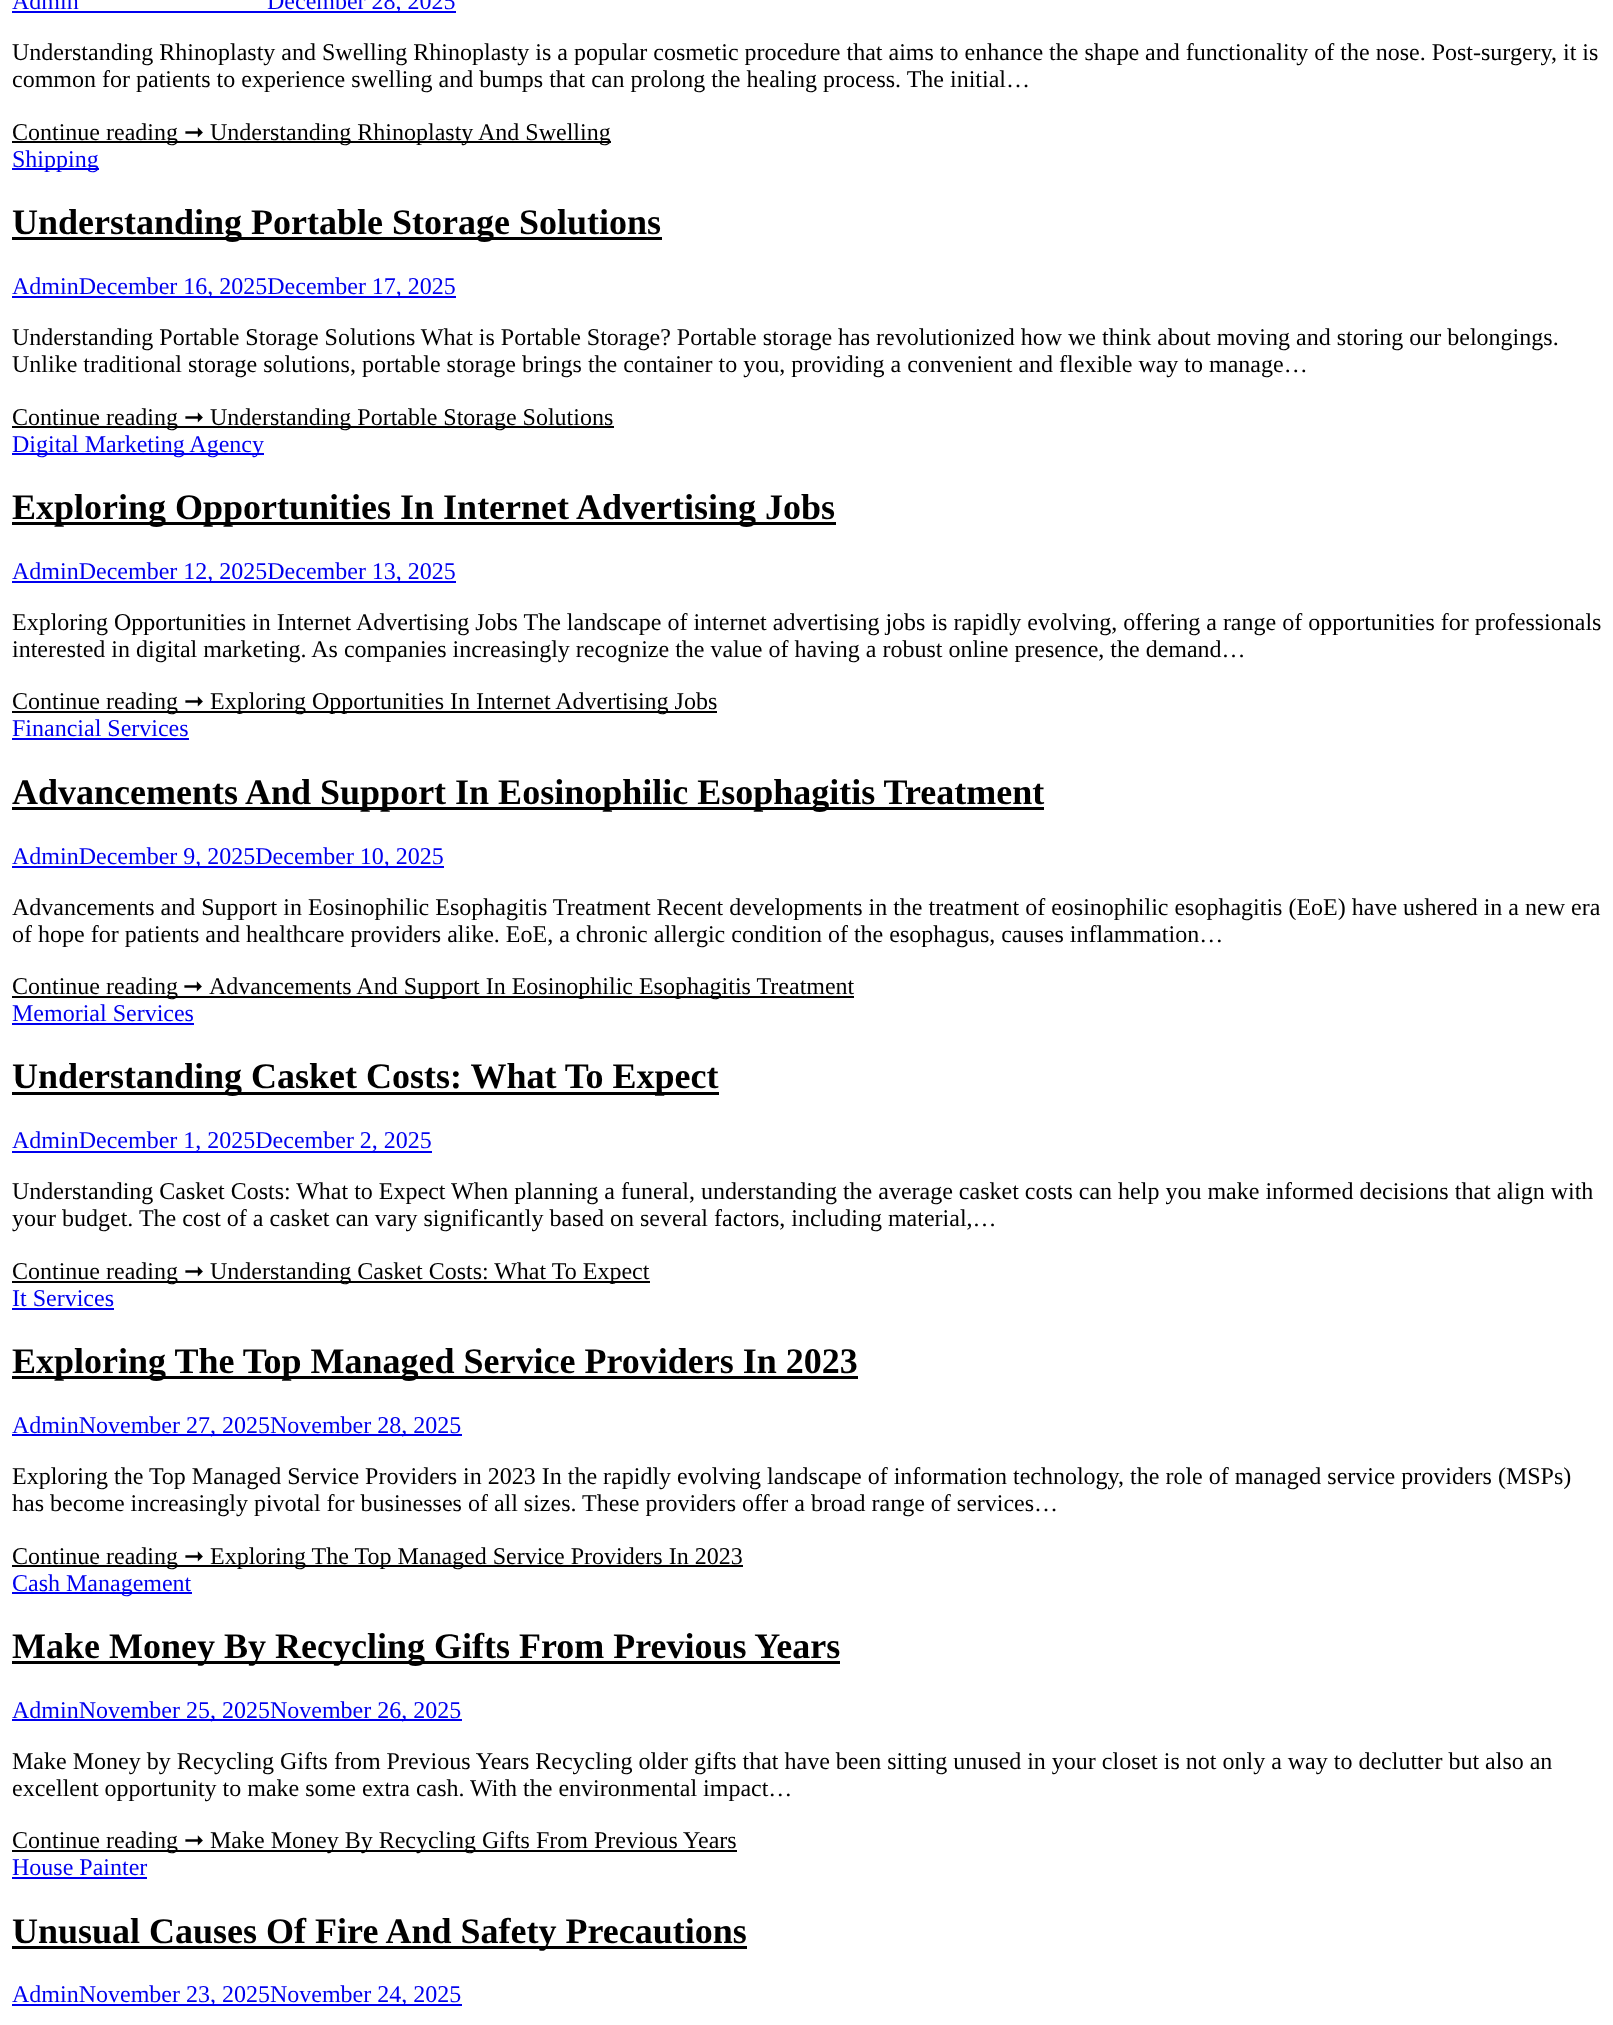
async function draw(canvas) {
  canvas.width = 1613
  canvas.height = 2025
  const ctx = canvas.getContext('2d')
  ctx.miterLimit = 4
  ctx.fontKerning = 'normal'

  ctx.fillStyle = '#fff'
  ctx.fillRect(0, 0, 1613, 2025)
  ctx.font = '24px Liberation Serif'
  ctx.fillStyle = '#00e'
  ctx.fillText('Admin', 12, 9)
  ctx.fillRect(12, 11, 444, 2)
  ctx.fillText('December 28, 2025', 267, 9)
  ctx.fillStyle = '#000'
  ctx.fillText('Understanding Rhinoplasty and Swelling Rhinoplasty is a popular cosmetic procedure that aims to enhance the shape and functionality of the nose. Post-surgery, it is', 12, 60)
  ctx.fillText('common for patients to experience swelling and bumps that can prolong the healing process. The initial…', 12, 87)
  ctx.fillRect(12, 141, 599, 2)
  ctx.fillText('Continue reading', 12, 140)
  ctx.font = '24px DejaVu Sans'
  ctx.fillText('➞', 184, 140)
  ctx.font = '24px Liberation Serif'
  ctx.fillText('Understanding Rhinoplasty And Swelling', 210, 140)
  ctx.fillStyle = '#00e'
  ctx.fillRect(12, 168, 87, 2)
  ctx.fillText('Shipping', 12, 167)
  ctx.fillStyle = '#000'
  ctx.fillRect(12, 237, 650, 3)
  ctx.font = 'bold 36px Liberation Serif'
  ctx.fillText('Understanding Portable Storage Solutions', 12, 234)
  ctx.fillStyle = '#00e'
  ctx.fillRect(12, 296, 444, 2)
  ctx.font = '24px Liberation Serif'
  ctx.fillText('AdminDecember 16, 2025December 17, 2025', 12, 294)
  ctx.fillStyle = '#000'
  ctx.fillText('Understanding Portable Storage Solutions What is Portable Storage? Portable storage has revolutionized how we think about moving and storing our belongings.', 12, 345)
  ctx.fillText('Unlike traditional storage solutions, portable storage brings the container to you, providing a convenient and flexible way to manage…', 12, 372)
  ctx.fillRect(12, 426, 602, 2)
  ctx.fillText('Continue reading', 12, 425)
  ctx.font = '24px DejaVu Sans'
  ctx.fillText('➞', 184, 425)
  ctx.font = '24px Liberation Serif'
  ctx.fillText('Understanding Portable Storage Solutions', 210, 425)
  ctx.fillStyle = '#00e'
  ctx.fillRect(12, 453, 252, 2)
  ctx.fillText('Digital Marketing Agency', 12, 452)
  ctx.fillStyle = '#000'
  ctx.fillRect(12, 522, 824, 3)
  ctx.font = 'bold 36px Liberation Serif'
  ctx.fillText('Exploring Opportunities In Internet Advertising Jobs', 12, 519)
  ctx.fillStyle = '#00e'
  ctx.fillRect(12, 581, 444, 2)
  ctx.font = '24px Liberation Serif'
  ctx.fillText('AdminDecember 12, 2025December 13, 2025', 12, 579)
  ctx.fillStyle = '#000'
  ctx.fillText('Exploring Opportunities in Internet Advertising Jobs The landscape of internet advertising jobs is rapidly evolving, offering a range of opportunities for professionals', 12, 630)
  ctx.fillText('interested in digital marketing. As companies increasingly recognize the value of having a robust online presence, the demand…', 12, 657)
  ctx.fillRect(12, 711, 705, 2)
  ctx.fillText('Continue reading', 12, 709)
  ctx.font = '24px DejaVu Sans'
  ctx.fillText('➞', 184, 709)
  ctx.font = '24px Liberation Serif'
  ctx.fillText('Exploring Opportunities In Internet Advertising Jobs', 210, 709)
  ctx.fillStyle = '#00e'
  ctx.fillText('Financial Services', 12, 736)
  ctx.fillRect(12, 738, 177, 2)
  ctx.fillStyle = '#000'
  ctx.fillRect(12, 807, 1032, 3)
  ctx.font = 'bold 36px Liberation Serif'
  ctx.fillText('Advancements And Support In Eosinophilic Esophagitis Treatment', 12, 804)
  ctx.fillStyle = '#00e'
  ctx.fillRect(12, 866, 432, 2)
  ctx.font = '24px Liberation Serif'
  ctx.fillText('AdminDecember 9, 2025December 10, 2025', 12, 864)
  ctx.fillStyle = '#000'
  ctx.fillText('Advancements and Support in Eosinophilic Esophagitis Treatment Recent developments in the treatment of eosinophilic esophagitis (EoE) have ushered in a new era', 12, 915)
  ctx.fillText('of hope for patients and healthcare providers alike. EoE, a chronic allergic condition of the esophagus, causes inflammation…', 12, 942)
  ctx.fillRect(12, 996, 842, 2)
  ctx.fillText('Continue reading', 12, 994)
  ctx.font = '24px DejaVu Sans'
  ctx.fillText('➞', 183, 994)
  ctx.font = '24px Liberation Serif'
  ctx.fillText('Advancements And Support In Eosinophilic Esophagitis Treatment', 209, 994)
  ctx.fillStyle = '#00e'
  ctx.fillText('Memorial Services', 12, 1021)
  ctx.fillRect(12, 1023, 182, 2)
  ctx.fillStyle = '#000'
  ctx.fillRect(12, 1092, 707, 3)
  ctx.font = 'bold 36px Liberation Serif'
  ctx.fillText('Understanding Casket Costs: What To Expect', 12, 1088)
  ctx.fillStyle = '#00e'
  ctx.fillRect(12, 1151, 420, 2)
  ctx.font = '24px Liberation Serif'
  ctx.fillText('AdminDecember 1, 2025December 2, 2025', 12, 1148)
  ctx.fillStyle = '#000'
  ctx.fillText('Understanding Casket Costs: What to Expect When planning a funeral, understanding the average casket costs can help you make informed decisions that align with', 12, 1199)
  ctx.fillText('your budget. The cost of a casket can vary significantly based on several factors, including material,…', 12, 1226)
  ctx.fillRect(12, 1281, 638, 2)
  ctx.fillText('Continue reading', 12, 1279)
  ctx.font = '24px DejaVu Sans'
  ctx.fillText('➞', 184, 1279)
  ctx.font = '24px Liberation Serif'
  ctx.fillText('Understanding Casket Costs: What To Expect', 210, 1279)
  ctx.fillStyle = '#00e'
  ctx.fillText('It Services', 12, 1306)
  ctx.fillRect(12, 1308, 102, 2)
  ctx.fillStyle = '#000'
  ctx.fillRect(12, 1376, 846, 3)
  ctx.font = 'bold 36px Liberation Serif'
  ctx.fillText('Exploring The Top Managed Service Providers In 2023', 12, 1373)
  ctx.fillStyle = '#00e'
  ctx.fillRect(12, 1434, 450, 2)
  ctx.font = '24px Liberation Serif'
  ctx.fillText('AdminNovember 27, 2025November 28, 2025', 12, 1433)
  ctx.fillStyle = '#000'
  ctx.fillText('Exploring the Top Managed Service Providers in 2023 In the rapidly evolving landscape of information technology, the role of managed service providers (MSPs)', 12, 1484)
  ctx.fillText('has become increasingly pivotal for businesses of all sizes. These providers offer a broad range of services…', 12, 1511)
  ctx.fillRect(12, 1565, 731, 2)
  ctx.fillText('Continue reading', 12, 1564)
  ctx.font = '24px DejaVu Sans'
  ctx.fillText('➞', 184, 1564)
  ctx.font = '24px Liberation Serif'
  ctx.fillText('Exploring The Top Managed Service Providers In 2023', 210, 1564)
  ctx.fillStyle = '#00e'
  ctx.fillRect(12, 1592, 180, 2)
  ctx.fillText('Cash Management', 12, 1591)
  ctx.fillStyle = '#000'
  ctx.fillRect(12, 1661, 828, 3)
  ctx.font = 'bold 36px Liberation Serif'
  ctx.fillText('Make Money By Recycling Gifts From Previous Years', 12, 1658)
  ctx.fillStyle = '#00e'
  ctx.fillRect(12, 1719, 450, 2)
  ctx.font = '24px Liberation Serif'
  ctx.fillText('AdminNovember 25, 2025November 26, 2025', 12, 1718)
  ctx.fillStyle = '#000'
  ctx.fillText('Make Money by Recycling Gifts from Previous Years Recycling older gifts that have been sitting unused in your closet is not only a way to declutter but also an', 12, 1769)
  ctx.fillText('excellent opportunity to make some extra cash. With the environmental impact…', 12, 1796)
  ctx.fillRect(12, 1850, 725, 2)
  ctx.fillText('Continue reading', 12, 1848)
  ctx.font = '24px DejaVu Sans'
  ctx.fillText('➞', 184, 1848)
  ctx.font = '24px Liberation Serif'
  ctx.fillText('Make Money By Recycling Gifts From Previous Years', 210, 1848)
  ctx.fillStyle = '#00e'
  ctx.fillText('House Painter', 12, 1875)
  ctx.fillRect(12, 1877, 135, 2)
  ctx.fillStyle = '#000'
  ctx.fillRect(12, 1946, 735, 3)
  ctx.font = 'bold 36px Liberation Serif'
  ctx.fillText('Unusual Causes Of Fire And Safety Precautions', 12, 1943)
  ctx.fillStyle = '#00e'
  ctx.fillRect(12, 2004, 450, 2)
  ctx.font = '24px Liberation Serif'
  ctx.fillText('AdminNovember 23, 2025November 24, 2025', 12, 2002)
}

draw(document.querySelector('canvas'))
